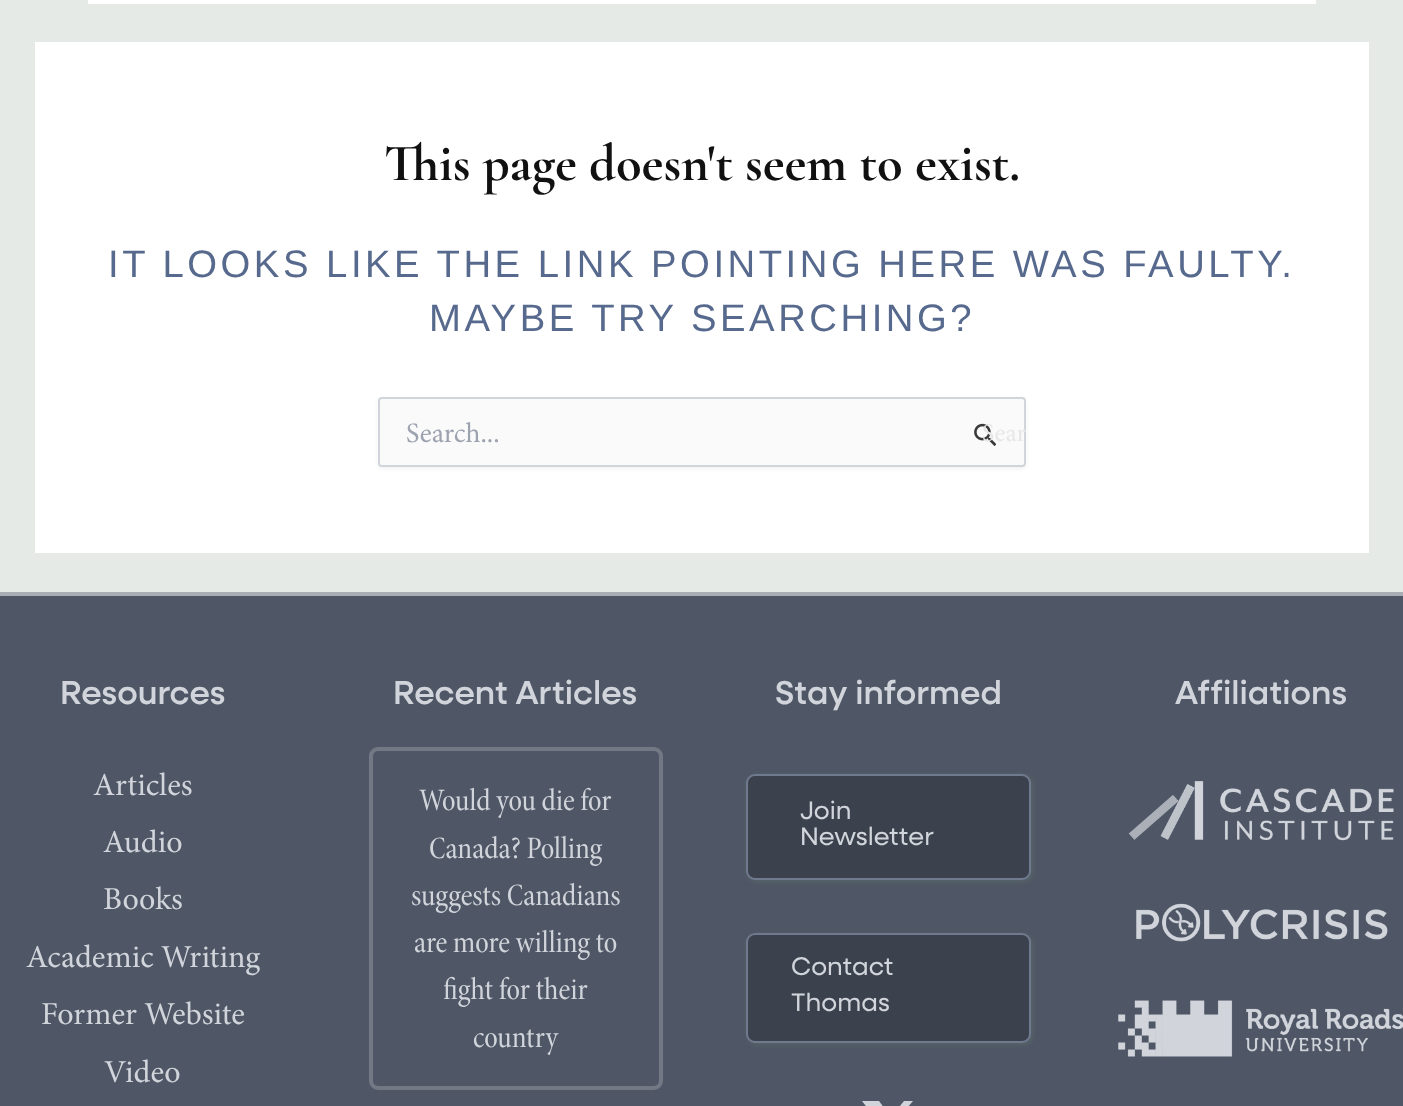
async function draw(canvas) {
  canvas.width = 1403
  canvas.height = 1106
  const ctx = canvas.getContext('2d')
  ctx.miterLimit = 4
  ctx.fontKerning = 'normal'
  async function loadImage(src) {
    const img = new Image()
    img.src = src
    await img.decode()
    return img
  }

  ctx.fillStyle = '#e6eae6'
  ctx.fillRect(0, 0, 1403, 1106)
  ctx.fillStyle = '#fff'
  ctx.fillRect(88, 0, 1228, 4)
  ctx.fillRect(35, 42, 1334, 511)
  ctx.font = '300 52.5px Cormorant Garamond'
  ctx.fillStyle = '#111'
  ctx.fillText('This page doesn\'t seem to exist.', 384, 180)
  ctx.letterSpacing = '3.5px'
  ctx.font = '38.3px Liberation Sans'
  ctx.fillStyle = '#576a8e'
  ctx.fillText('IT LOOKS LIKE THE LINK POINTING HERE WAS FAULTY.', 108, 277)
  ctx.fillText('MAYBE TRY SEARCHING?', 429, 331)
  ctx.fillStyle = '#0000000d'
  ctx.filter = 'blur(2px)'
  ctx.beginPath()
  ctx.roundRect(378, 399, 648, 70, 4)
  ctx.fill()
  ctx.filter = 'none'
  ctx.fillStyle = '#fafafa'
  ctx.beginPath()
  ctx.roundRect(379, 398, 646, 68, 3)
  ctx.fill()
  ctx.strokeStyle = '#d1d5db'
  ctx.lineWidth = 2
  ctx.stroke()
  ctx.letterSpacing = '0px'
  ctx.font = '28px Minion'
  ctx.fillStyle = '#9ca3af'
  ctx.fillText('Search...', 406, 442)
  ctx.drawImage(await loadImage('image0.png'), 974, 423, 22, 24)
  ctx.font = '25.5px Minion'
  ctx.fillStyle = '#e7e7e7'
  ctx.fillText('Sear', 982, 441)
  ctx.fillStyle = '#4f5766'
  ctx.fillRect(0, 596, 1403, 510)
  ctx.fillStyle = '#a9adb4'
  ctx.fillRect(0, 592, 1403, 4)
  ctx.font = '500 33.25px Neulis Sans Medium'
  ctx.fillStyle = '#d1d5db'
  ctx.fillText('Resources', 60, 704)
  ctx.font = '32px Minion'
  ctx.fillText('Articles', 93, 795)
  ctx.fillText('Audio', 103, 852)
  ctx.fillText('Books', 103, 909)
  ctx.fillText('Academic Writing', 26, 967)
  ctx.fillText('Former Website', 41, 1024)
  ctx.fillText('Video', 104, 1082)
  ctx.font = '500 33.25px Neulis Sans Medium'
  ctx.fillText('Recent Articles', 393, 704)
  ctx.beginPath()
  ctx.roundRect(371, 749, 290, 339, 7)
  ctx.strokeStyle = '#727985'
  ctx.lineWidth = 4
  ctx.stroke()
  ctx.font = '31.5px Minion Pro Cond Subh'
  ctx.fillText('Would you die for', 419, 810)
  ctx.fillText('Canada? Polling', 429, 858)
  ctx.fillText('suggests Canadians', 411, 905)
  ctx.fillText('are more willing to', 414, 952)
  ctx.fillText('fight for their', 443, 999)
  ctx.fillText('country', 473, 1047)
  ctx.font = '500 33.25px Neulis Sans Medium'
  ctx.fillText('Stay informed', 775, 704)
  ctx.fillStyle = '#6c876d3d'
  ctx.filter = 'blur(2px)'
  ctx.beginPath()
  ctx.roundRect(747, 775, 286, 107, 9)
  ctx.fill()
  ctx.filter = 'none'
  ctx.fillStyle = '#3b414d'
  ctx.beginPath()
  ctx.roundRect(747, 775, 283, 104, 8)
  ctx.fill()
  ctx.strokeStyle = '#6f7a8e'
  ctx.lineWidth = 2
  ctx.stroke()
  ctx.font = '25.5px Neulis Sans'
  ctx.fillStyle = '#d1d5db'
  ctx.fillText('Join', 800, 819)
  ctx.fillText('Newsletter', 800, 845)
  ctx.fillStyle = '#6c876d3d'
  ctx.filter = 'blur(2px)'
  ctx.beginPath()
  ctx.roundRect(747, 935, 286, 110, 9)
  ctx.fill()
  ctx.filter = 'none'
  ctx.fillStyle = '#3b414d'
  ctx.beginPath()
  ctx.roundRect(747, 934, 283, 108, 8)
  ctx.fill()
  ctx.stroke()
  ctx.fillStyle = '#d1d5db'
  ctx.fillText('Contact', 791, 975)
  ctx.fillText('Thomas', 791, 1011)
  ctx.beginPath()
  ctx.moveTo(904, 1101)
  ctx.lineTo(913, 1101)
  ctx.lineTo(895, 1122)
  ctx.lineTo(916, 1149)
  ctx.lineTo(899, 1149)
  ctx.lineTo(886, 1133)
  ctx.lineTo(872, 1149)
  ctx.lineTo(863, 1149)
  ctx.lineTo(883, 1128)
  ctx.lineTo(862, 1101)
  ctx.lineTo(879, 1101)
  ctx.lineTo(891, 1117)
  ctx.closePath()
  ctx.moveTo(902, 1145)
  ctx.lineTo(906, 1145)
  ctx.lineTo(877, 1106)
  ctx.lineTo(872, 1106)
  ctx.closePath()
  ctx.fill()
  ctx.font = '500 33.25px Neulis Sans Medium'
  ctx.fillText('Affiliations', 1175, 704)
  ctx.drawImage(await loadImage('image1.png'), 1128, 781, 266, 60)
  ctx.drawImage(await loadImage('image2.png'), 1136, 903, 252, 39)
  ctx.drawImage(await loadImage('image3.png'), 1118, 1000, 285, 57)
}

draw(document.querySelector('canvas'))
